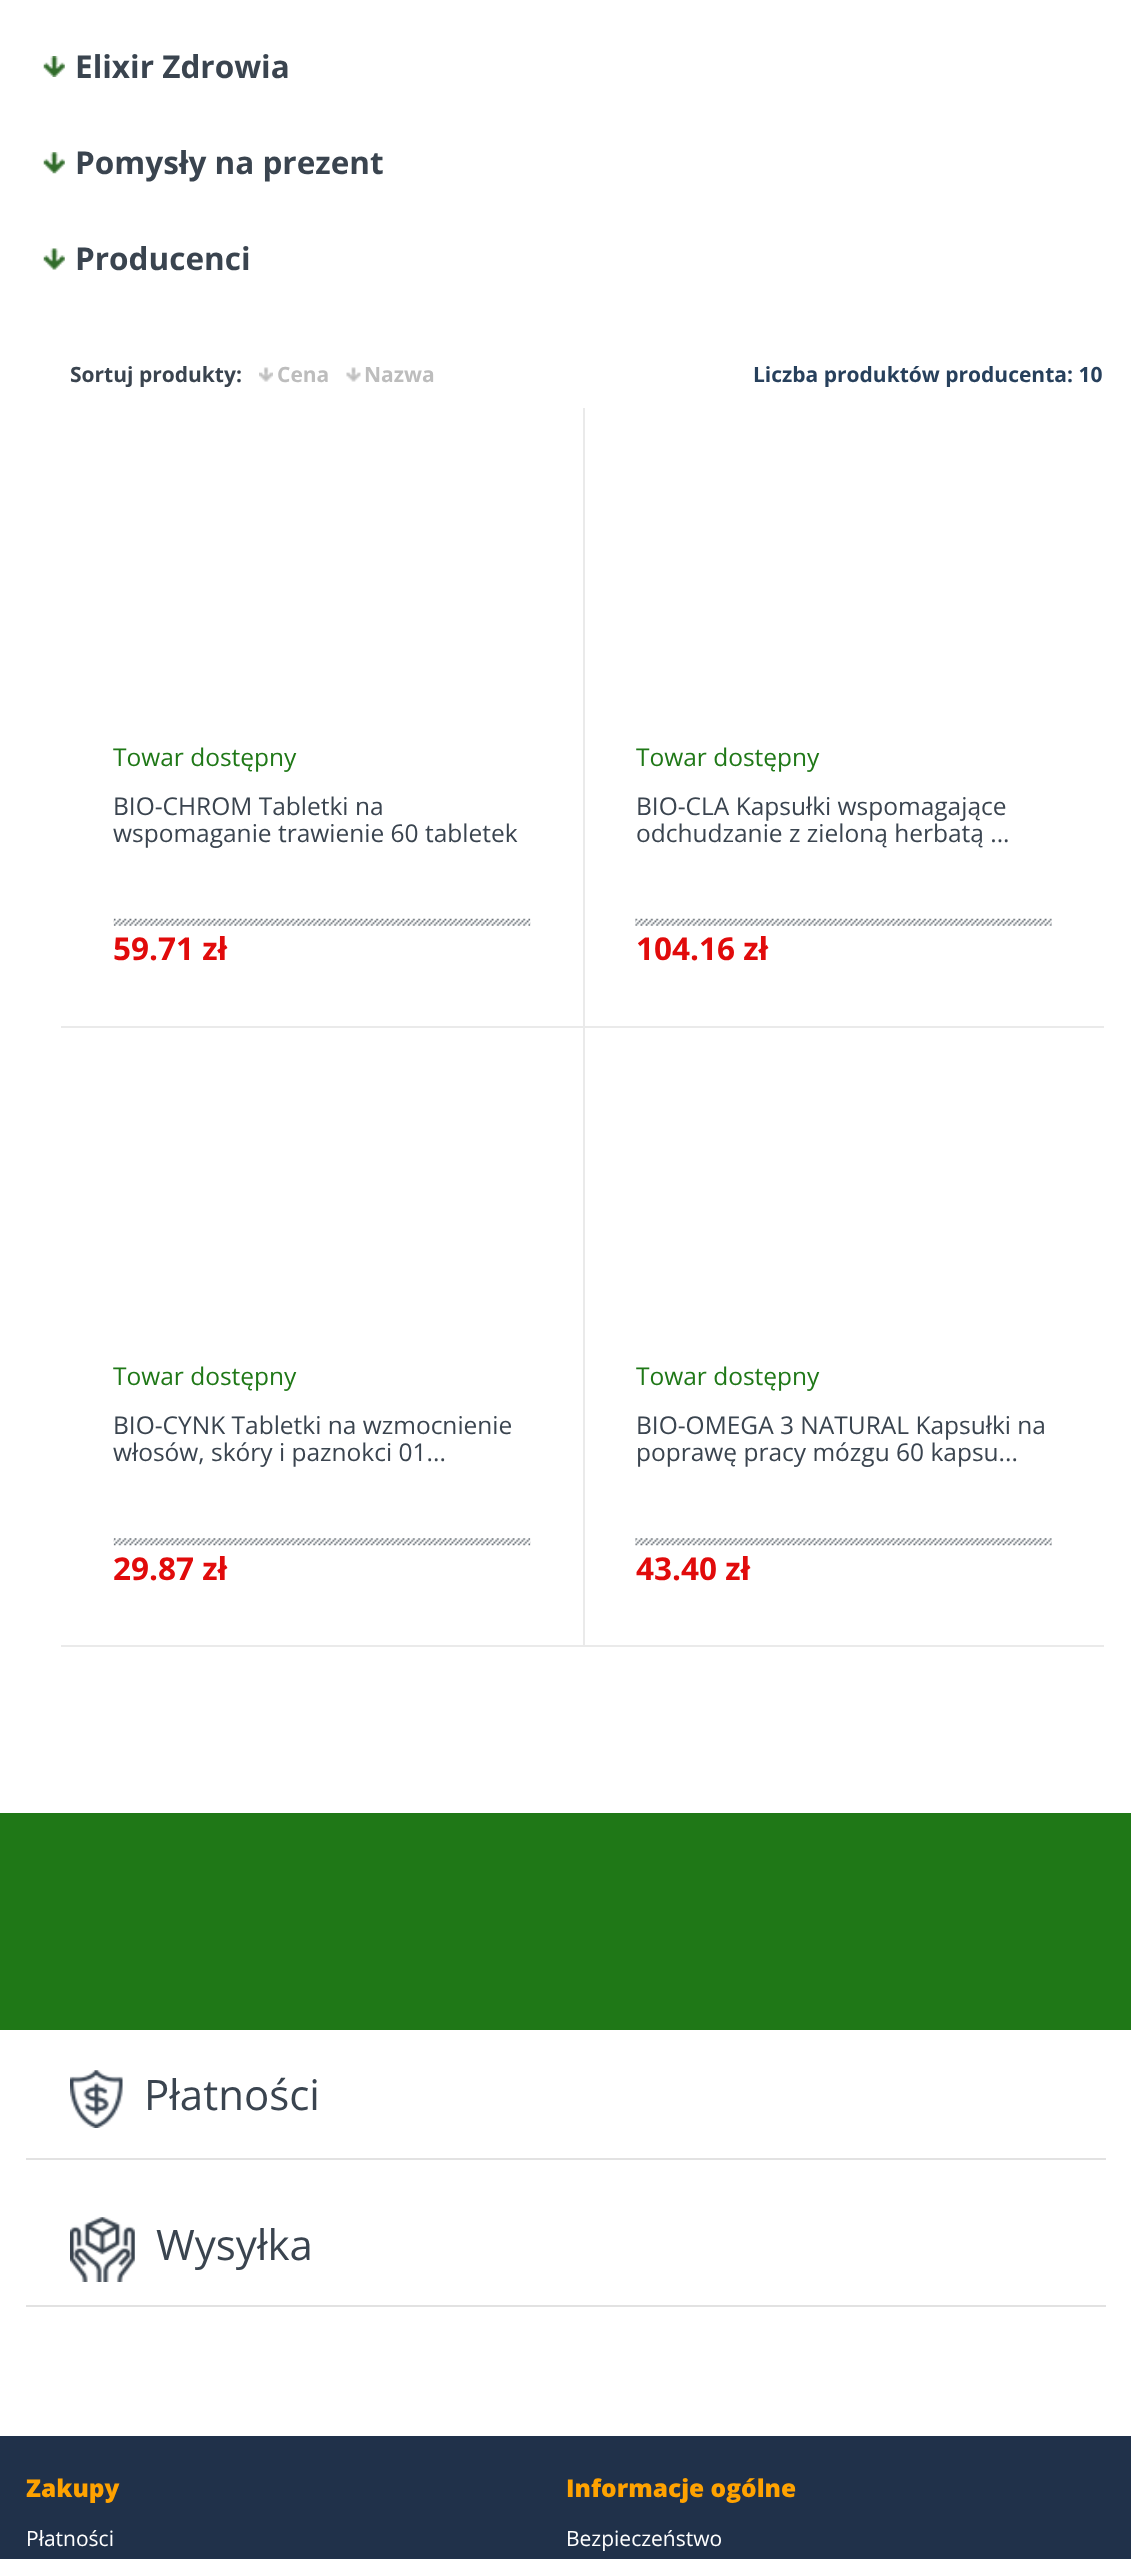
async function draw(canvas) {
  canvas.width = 1131
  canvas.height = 2559
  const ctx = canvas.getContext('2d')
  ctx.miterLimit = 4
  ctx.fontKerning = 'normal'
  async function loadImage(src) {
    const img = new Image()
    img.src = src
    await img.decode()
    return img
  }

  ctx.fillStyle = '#fff'
  ctx.fillRect(0, 0, 1131, 2559)
  ctx.drawImage(await loadImage('image0.png'), 43, 56, 22, 21)
  ctx.font = 'bold 31.5px Open Sans'
  ctx.fillStyle = '#3a444f'
  ctx.fillText('Elixir Zdrowia', 75, 78)
  ctx.drawImage(await loadImage('image1.png'), 43, 152, 22, 22)
  ctx.fillText('Pomysły na prezent', 75, 174)
  ctx.drawImage(await loadImage('image2.png'), 43, 248, 22, 22)
  ctx.fillText('Producenci', 75, 270)
  ctx.font = 'bold 21px Open Sans'
  ctx.fillText('Sortuj produkty:', 70, 382)
  ctx.drawImage(await loadImage('image3.png'), 259, 367, 14, 15)
  ctx.fillStyle = '#bdbdbd'
  ctx.fillText('Cena', 277, 382)
  ctx.drawImage(await loadImage('image4.png'), 346, 367, 15, 15)
  ctx.fillText('Nazwa', 364, 382)
  ctx.fillStyle = '#27405c'
  ctx.fillText('Liczba produktów producenta: 10', 753, 382)
  ctx.fillStyle = '#eaeaea'
  ctx.fillRect(583, 408, 2, 619)
  ctx.fillRect(61, 1026, 1045, 2)
  ctx.font = '24.5px Open Sans'
  ctx.fillStyle = '#1f7817'
  ctx.fillText('Towar dostępny', 113, 766)
  ctx.fillStyle = '#3a444f'
  ctx.fillText('BIO-CHROM Tabletki na', 113, 815)
  ctx.fillText('wspomaganie trawienie 60 tabletek', 113, 842)
  ctx.drawImage(await loadImage('image5.png'), 113, 918, 418, 8)
  ctx.font = 'bold 31.5px Open Sans'
  ctx.fillStyle = '#e10b0b'
  ctx.fillText('59.71 zł', 113, 960)
  ctx.font = '24.5px Open Sans'
  ctx.fillStyle = '#1f7817'
  ctx.fillText('Towar dostępny', 636, 766)
  ctx.fillStyle = '#3a444f'
  ctx.fillText('BIO-CLA Kapsułki wspomagające', 636, 815)
  ctx.fillText('odchudzanie z zieloną herbatą ...', 636, 842)
  ctx.drawImage(await loadImage('image6.png'), 635, 918, 417, 8)
  ctx.font = 'bold 31.5px Open Sans'
  ctx.fillStyle = '#e10b0b'
  ctx.fillText('104.16 zł', 636, 960)
  ctx.fillStyle = '#eaeaea'
  ctx.fillRect(583, 1027, 2, 620)
  ctx.fillRect(61, 1645, 1045, 2)
  ctx.font = '24.5px Open Sans'
  ctx.fillStyle = '#1f7817'
  ctx.fillText('Towar dostępny', 113, 1385)
  ctx.fillStyle = '#3a444f'
  ctx.fillText('BIO-CYNK Tabletki na wzmocnienie', 113, 1434)
  ctx.fillText('włosów, skóry i paznokci 01...', 113, 1461)
  ctx.drawImage(await loadImage('image7.png'), 113, 1538, 418, 8)
  ctx.font = 'bold 31.5px Open Sans'
  ctx.fillStyle = '#e10b0b'
  ctx.fillText('29.87 zł', 113, 1580)
  ctx.font = '24.5px Open Sans'
  ctx.fillStyle = '#1f7817'
  ctx.fillText('Towar dostępny', 636, 1385)
  ctx.fillStyle = '#3a444f'
  ctx.fillText('BIO-OMEGA 3 NATURAL Kapsułki na', 636, 1434)
  ctx.fillText('poprawę pracy mózgu 60 kapsu...', 636, 1461)
  ctx.drawImage(await loadImage('image8.png'), 635, 1538, 417, 8)
  ctx.font = 'bold 31.5px Open Sans'
  ctx.fillStyle = '#e10b0b'
  ctx.fillText('43.40 zł', 636, 1580)
  ctx.fillStyle = '#fff'
  ctx.fillRect(1104, 1026, 2, 621)
  ctx.fillStyle = '#1f7817'
  ctx.fillRect(0, 1813, 1131, 217)
  ctx.fillStyle = '#e2e2e2'
  ctx.fillRect(26, 2158, 1080, 2)
  ctx.drawImage(await loadImage('image9.png'), 70, 2070, 53, 58)
  ctx.font = '42px Open Sans'
  ctx.fillStyle = '#3a444f'
  ctx.fillText('Płatności', 144, 2110)
  ctx.fillStyle = '#e2e2e2'
  ctx.fillRect(26, 2305, 1080, 2)
  ctx.drawImage(await loadImage('image10.png'), 70, 2217, 65, 65)
  ctx.fillStyle = '#3a444f'
  ctx.fillText('Wysyłka', 156, 2260)
  ctx.fillStyle = '#20314a'
  ctx.fillRect(0, 2436, 1131, 123)
  ctx.font = '800 24.5px Open Sans'
  ctx.fillStyle = '#ffa200'
  ctx.fillText('Zakupy', 26, 2497)
  ctx.font = '21px Open Sans'
  ctx.fillStyle = '#fff'
  ctx.fillText('Płatności', 26, 2546)
  ctx.font = '800 24.5px Open Sans'
  ctx.fillStyle = '#ffa200'
  ctx.fillText('Informacje ogólne', 566, 2497)
  ctx.font = '21px Open Sans'
  ctx.fillStyle = '#fff'
  ctx.fillText('Bezpieczeństwo', 566, 2546)
}

draw(document.querySelector('canvas'))
